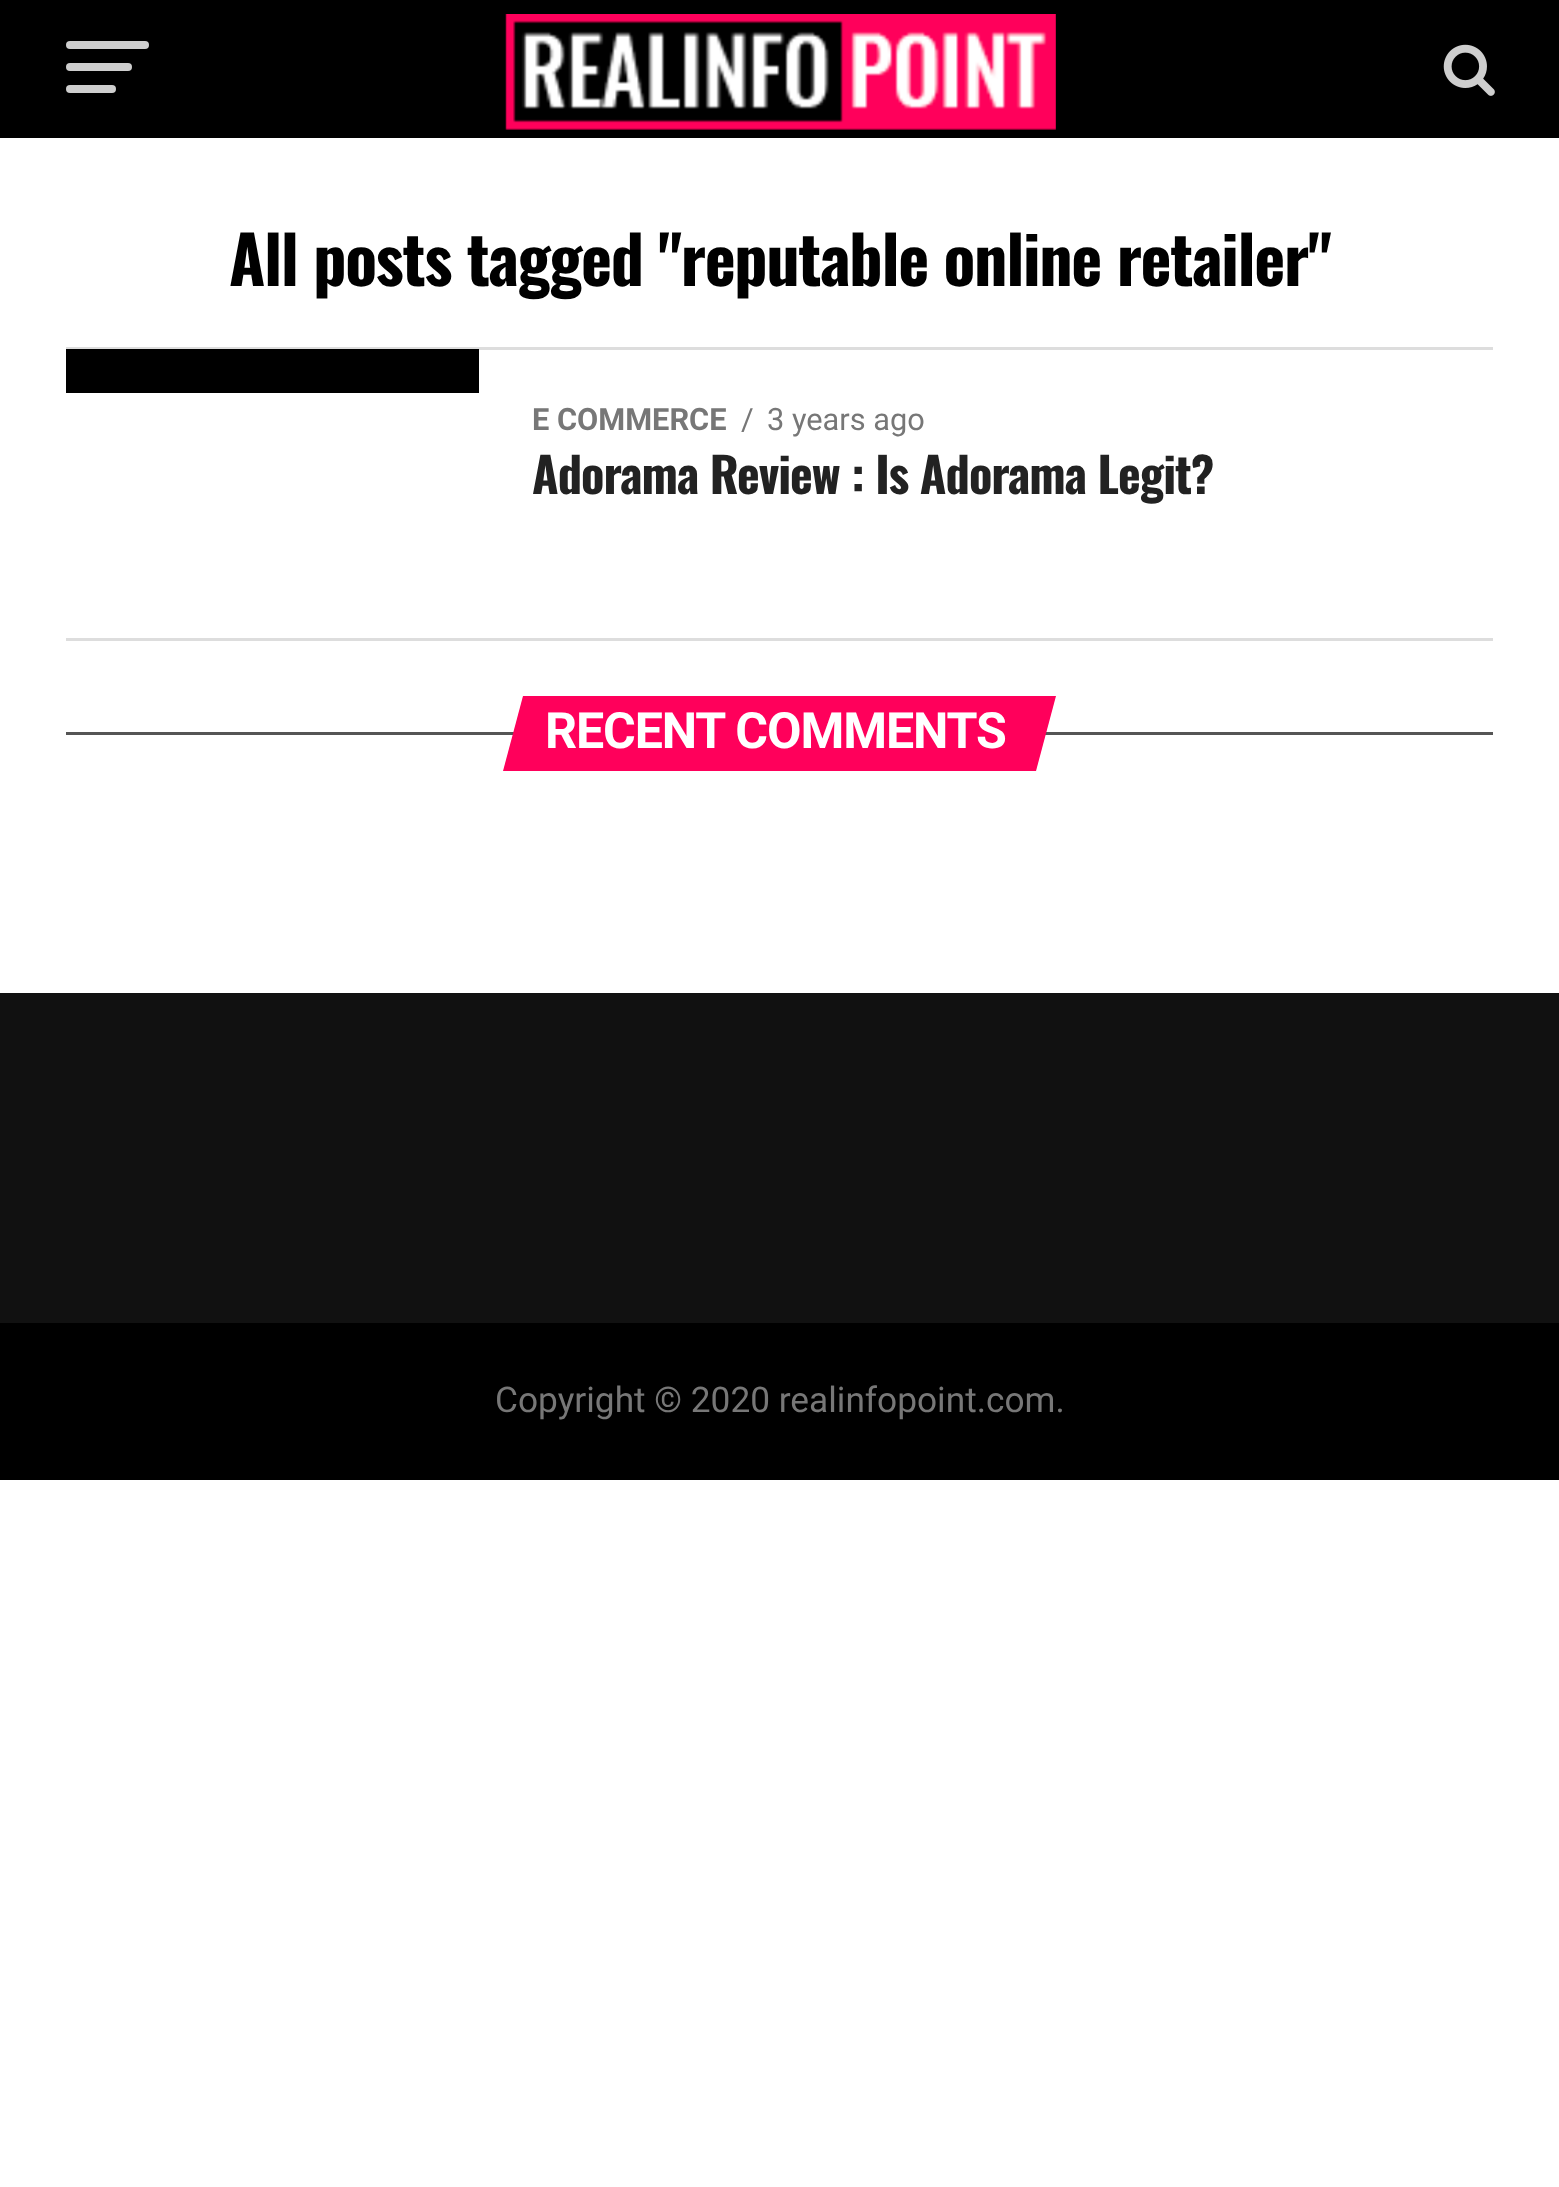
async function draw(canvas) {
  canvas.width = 1559
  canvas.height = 2187
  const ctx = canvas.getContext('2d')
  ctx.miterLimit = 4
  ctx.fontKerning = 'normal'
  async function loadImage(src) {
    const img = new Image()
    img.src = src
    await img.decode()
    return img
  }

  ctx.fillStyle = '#fff'
  ctx.fillRect(0, 0, 1559, 2187)
  ctx.fillStyle = '#000'
  ctx.fillRect(0, 0, 1559, 138)
  ctx.fillStyle = '#cecece'
  ctx.beginPath()
  ctx.roundRect(66, 41, 83, 8, 4)
  ctx.fill()
  ctx.beginPath()
  ctx.roundRect(66, 63, 66, 8, 4)
  ctx.fill()
  ctx.beginPath()
  ctx.roundRect(66, 85, 50, 8, 4)
  ctx.fill()
  ctx.drawImage(await loadImage('image0.png'), 505, 14, 551, 116)
  ctx.drawImage(await loadImage('image1.png'), 1443, 44, 52, 52)
  ctx.letterSpacing = '-1.3px'
  ctx.font = 'bold 66px Oswald'
  ctx.fillStyle = '#000'
  ctx.fillText('All posts tagged "reputable online retailer"', 229, 286)
  ctx.fillStyle = '#ddd'
  ctx.fillRect(66, 347, 1427, 3)
  ctx.fillStyle = '#000'
  ctx.fillRect(66, 349, 413, 44)
  ctx.letterSpacing = '0px'
  ctx.font = 'bold 30.75px Roboto'
  ctx.fillStyle = '#777'
  ctx.fillText('E COMMERCE', 532, 430)
  ctx.font = '30.75px Roboto'
  ctx.fillText('/', 741, 430)
  ctx.fillText('3 years ago', 767, 430)
  ctx.letterSpacing = '-0.95px'
  ctx.font = 'bold 48.4px Oswald'
  ctx.fillStyle = '#222'
  ctx.fillText('Adorama Review : Is Adorama Legit?', 532, 494)
  ctx.fillStyle = '#ddd'
  ctx.fillRect(66, 638, 1427, 3)
  ctx.fillStyle = '#555'
  ctx.fillRect(66, 732, 1427, 3)
  ctx.fillStyle = '#ff005b'
  ctx.beginPath()
  ctx.moveTo(523, 696)
  ctx.lineTo(1056, 696)
  ctx.lineTo(1036, 771)
  ctx.lineTo(503, 771)
  ctx.closePath()
  ctx.fill()
  ctx.letterSpacing = '-1.1px'
  ctx.font = 'bold 50.1px Roboto'
  ctx.fillStyle = '#fff'
  ctx.fillText('RECENT COMMENTS', 545, 748)
  ctx.fillStyle = '#111'
  ctx.fillRect(0, 993, 1559, 330)
  ctx.fillStyle = '#000'
  ctx.fillRect(0, 1323, 1559, 157)
  ctx.letterSpacing = '0px'
  ctx.font = '35.25px Roboto'
  ctx.fillStyle = '#777'
  ctx.fillText('Copyright © 2020 realinfopoint.com.', 495, 1412)
}

draw(document.querySelector('canvas'))
